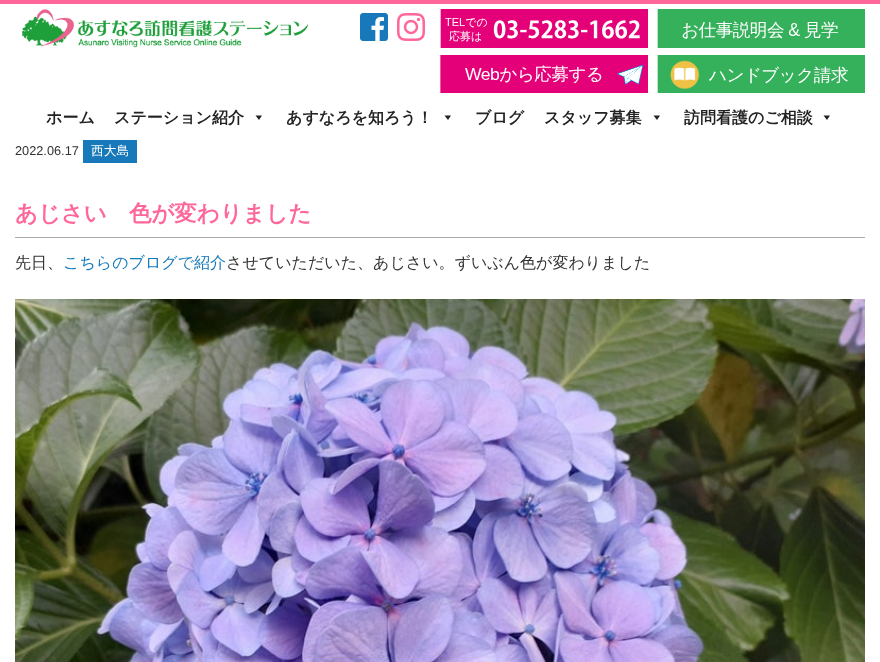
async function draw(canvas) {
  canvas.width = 880
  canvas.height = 662
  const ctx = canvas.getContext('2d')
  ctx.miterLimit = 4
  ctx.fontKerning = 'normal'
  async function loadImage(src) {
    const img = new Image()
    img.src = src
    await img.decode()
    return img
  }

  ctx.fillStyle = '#fff'
  ctx.fillRect(0, 0, 880, 662)
  ctx.fillStyle = '#f69'
  ctx.fillRect(0, 0, 880, 4)
  ctx.drawImage(await loadImage('image0.png'), 22, 9, 287, 39)
  ctx.drawImage(await loadImage('image1.png'), 360, 13, 28, 28)
  ctx.drawImage(await loadImage('image2.png'), 397, 13, 28, 28)
  ctx.drawImage(await loadImage('image3.png'), 440, 9, 208, 39)
  ctx.drawImage(await loadImage('image4.png'), 657, 9, 208, 39)
  ctx.drawImage(await loadImage('image5.png'), 440, 55, 208, 38)
  ctx.drawImage(await loadImage('image6.png'), 657, 55, 208, 38)
  ctx.font = 'bold 16px WenQuanYi Zen Hei'
  ctx.fillStyle = '#222'
  ctx.fillText('ホーム', 46, 123)
  ctx.fillText('ステーション紹介', 114, 123)
  ctx.beginPath()
  ctx.moveTo(262, 115.5)
  ctx.lineTo(259, 120)
  ctx.lineTo(255.5, 115.5)
  ctx.closePath()
  ctx.fill()
  ctx.fillText('あすなろを知ろう！', 286, 123)
  ctx.beginPath()
  ctx.moveTo(451, 115.5)
  ctx.lineTo(448, 120)
  ctx.lineTo(444.5, 115.5)
  ctx.closePath()
  ctx.fill()
  ctx.fillText('ブログ', 475, 123)
  ctx.fillText('スタッフ募集', 544, 123)
  ctx.beginPath()
  ctx.moveTo(660, 115.5)
  ctx.lineTo(657, 120)
  ctx.lineTo(653.5, 115.5)
  ctx.closePath()
  ctx.fill()
  ctx.fillText('訪問看護のご相談', 684, 123)
  ctx.beginPath()
  ctx.moveTo(830, 115.5)
  ctx.lineTo(827, 120)
  ctx.lineTo(823.5, 115.5)
  ctx.closePath()
  ctx.fill()
  ctx.font = '12.75px Liberation Sans'
  ctx.fillStyle = '#333'
  ctx.fillText('2022.06.17', 15, 155)
  ctx.fillStyle = '#1779ba'
  ctx.fillRect(83, 140, 54, 23)
  ctx.font = '500 12.75px WenQuanYi Zen Hei'
  ctx.fillStyle = '#fefefe'
  ctx.fillText('西大島', 91, 155)
  ctx.fillStyle = '#aaa'
  ctx.fillRect(15, 237, 850, 1)
  ctx.font = 'bold 22.4px WenQuanYi Zen Hei'
  ctx.fillStyle = '#f69'
  ctx.fillText('あじさい　色が変わりました', 15, 221)
  ctx.font = '500 16px WenQuanYi Zen Hei'
  ctx.fillStyle = '#333'
  ctx.fillText('先日、', 15, 268)
  ctx.fillStyle = '#1779ba'
  ctx.fillText('こちらのブログで紹介', 63, 268)
  ctx.fillStyle = '#333'
  ctx.fillText('させていただいた、あじさい。ずいぶん色が変わりました', 226, 268)
  ctx.drawImage(await loadImage('image7.png'), 15, 299, 850, 363)
}

draw(document.querySelector('canvas'))
